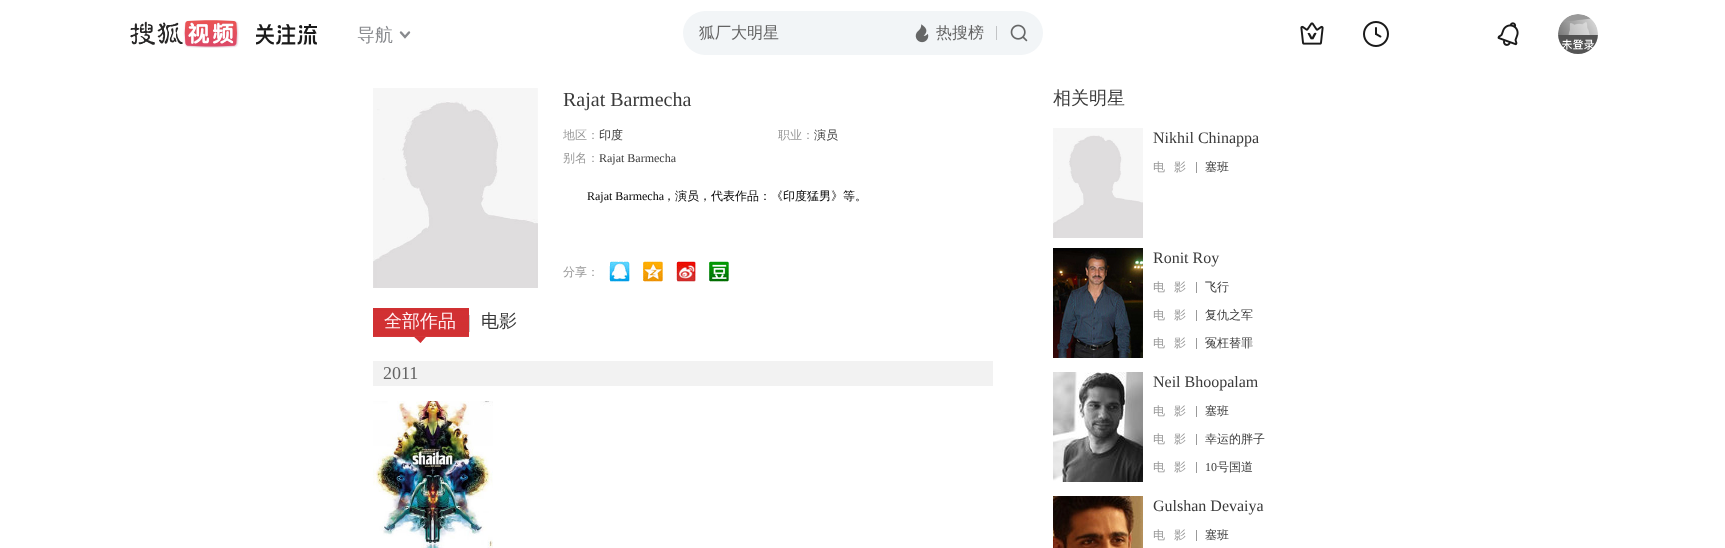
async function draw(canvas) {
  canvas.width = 1725
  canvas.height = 548
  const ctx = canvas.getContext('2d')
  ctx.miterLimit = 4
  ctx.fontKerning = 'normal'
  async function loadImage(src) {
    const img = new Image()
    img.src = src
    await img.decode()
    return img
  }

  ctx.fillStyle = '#fff'
  ctx.fillRect(0, 0, 1725, 548)
  ctx.drawImage(await loadImage('image0.png'), 130, 20, 109, 28)
  ctx.drawImage(await loadImage('image1.png'), 256, 24, 61, 21)
  ctx.font = '500 18px WenQuanYi Zen Hei'
  ctx.fillStyle = '#888a8e'
  ctx.fillText('导航', 357, 41)
  ctx.beginPath()
  ctx.moveTo(401, 32.5)
  ctx.lineTo(405, 37)
  ctx.lineTo(409, 32.5)
  ctx.strokeStyle = '#888a8e'
  ctx.lineWidth = 2.4
  ctx.lineCap = 'round'
  ctx.stroke()
  ctx.fillStyle = '#f2f5f7'
  ctx.beginPath()
  ctx.roundRect(683, 11, 360, 44, 22)
  ctx.fill()
  ctx.font = '500 16px WenQuanYi Zen Hei'
  ctx.fillStyle = '#646464'
  ctx.fillText('狐厂大明星', 699, 38)
  ctx.drawImage(await loadImage('image2.png'), 915, 24, 14, 19)
  ctx.fillText('热搜榜', 936, 38)
  ctx.fillStyle = '#c2c4c6'
  ctx.fillRect(996, 26, 1, 14)
  ctx.drawImage(await loadImage('image3.png'), 1010, 24, 18, 18)
  ctx.drawImage(await loadImage('image4.png'), 1300, 22, 24, 23)
  ctx.drawImage(await loadImage('image5.png'), 1363, 21, 26, 26)
  ctx.drawImage(await loadImage('image6.png'), 1497, 22, 22, 24)
  ctx.drawImage(await loadImage('image7.png'), 1558, 14, 40, 40)
  ctx.drawImage(await loadImage('image8.png'), 373, 88, 165, 200)
  ctx.font = '20px Liberation Serif'
  ctx.fillStyle = '#3a3a3a'
  ctx.fillText('Rajat Barmecha', 563, 106)
  ctx.save()
  ctx.beginPath()
  ctx.rect(563, 126, 210, 18)
  ctx.clip()
  ctx.font = '500 12px WenQuanYi Zen Hei'
  ctx.fillStyle = '#999'
  ctx.fillText('地区：', 563, 139)
  ctx.restore()
  ctx.font = '500 12px WenQuanYi Zen Hei'
  ctx.fillText('印度', 599, 139)
  ctx.save()
  ctx.beginPath()
  ctx.rect(778, 126, 210, 18)
  ctx.clip()
  ctx.fillStyle = '#999'
  ctx.fillText('职业：', 778, 139)
  ctx.restore()
  ctx.fillText('演员', 814, 139)
  ctx.fillStyle = '#999'
  ctx.fillText('别名：', 563, 162)
  ctx.font = '12px Liberation Serif'
  ctx.fillStyle = '#3a3a3a'
  ctx.fillText('Rajat Barmecha', 599, 162)
  ctx.fillStyle = '#000'
  ctx.fillText('Rajat Barmecha', 587, 200)
  ctx.font = '500 12px WenQuanYi Zen Hei'
  ctx.fillText('，演员，代表作品：《印度猛男》等。', 663, 200)
  ctx.fillStyle = '#999'
  ctx.fillText('分享：', 563, 276)
  ctx.drawImage(await loadImage('image9.png'), 609, 261, 21, 21)
  ctx.drawImage(await loadImage('image10.png'), 643, 261, 20, 21)
  ctx.drawImage(await loadImage('image11.png'), 676, 261, 20, 21)
  ctx.drawImage(await loadImage('image12.png'), 709, 261, 20, 21)
  ctx.drawImage(await loadImage('image13.png'), 373, 308, 96, 29)
  ctx.font = '500 18px WenQuanYi Zen Hei'
  ctx.fillStyle = '#fff0f3'
  ctx.fillText('全部作品', 384, 327)
  ctx.drawImage(await loadImage('image14.png'), 414, 337, 12, 6)
  ctx.fillStyle = '#cacaca'
  ctx.fillRect(469, 315, 1, 17)
  ctx.fillStyle = '#3a3a3a'
  ctx.fillText('电影', 481, 327)
  ctx.fillStyle = '#f2f2f2'
  ctx.fillRect(373, 361, 620, 25)
  ctx.font = '18px Liberation Serif'
  ctx.fillStyle = '#646464'
  ctx.fillText('2011', 383, 379)
  ctx.drawImage(await loadImage('image15.png'), 373, 401, 120, 147)
  ctx.font = '500 18px WenQuanYi Zen Hei'
  ctx.fillStyle = '#3a3a3a'
  ctx.fillText('相关明星', 1053, 104)
  ctx.drawImage(await loadImage('image16.png'), 1053, 128, 90, 110)
  ctx.font = '16px Liberation Serif'
  ctx.fillText('Nikhil Chinappa', 1153, 143)
  ctx.fillStyle = '#999'
  ctx.fillRect(1196, 162, 1, 11)
  ctx.font = '500 12px WenQuanYi Zen Hei'
  ctx.fillText('电', 1153, 171)
  ctx.fillText('影', 1174, 171)
  ctx.fillStyle = '#3a3a3a'
  ctx.fillText('塞班', 1205, 171)
  ctx.drawImage(await loadImage('image17.png'), 1053, 248, 90, 110)
  ctx.font = '16px Liberation Serif'
  ctx.fillText('Ronit Roy', 1153, 263)
  ctx.fillStyle = '#999'
  ctx.fillRect(1196, 282, 1, 11)
  ctx.font = '500 12px WenQuanYi Zen Hei'
  ctx.fillText('电', 1153, 291)
  ctx.fillText('影', 1174, 291)
  ctx.fillStyle = '#3a3a3a'
  ctx.fillText('飞行', 1205, 291)
  ctx.fillStyle = '#999'
  ctx.fillRect(1196, 310, 1, 11)
  ctx.fillText('电', 1153, 319)
  ctx.fillText('影', 1174, 319)
  ctx.fillStyle = '#3a3a3a'
  ctx.fillText('复仇之军', 1205, 319)
  ctx.fillStyle = '#999'
  ctx.fillRect(1196, 338, 1, 11)
  ctx.fillText('电', 1153, 347)
  ctx.fillText('影', 1174, 347)
  ctx.fillStyle = '#3a3a3a'
  ctx.fillText('冤枉替罪', 1205, 347)
  ctx.drawImage(await loadImage('image18.png'), 1053, 372, 90, 110)
  ctx.font = '16px Liberation Serif'
  ctx.fillText('Neil Bhoopalam', 1153, 387)
  ctx.fillStyle = '#999'
  ctx.fillRect(1196, 406, 1, 11)
  ctx.font = '500 12px WenQuanYi Zen Hei'
  ctx.fillText('电', 1153, 415)
  ctx.fillText('影', 1174, 415)
  ctx.fillStyle = '#3a3a3a'
  ctx.fillText('塞班', 1205, 415)
  ctx.fillStyle = '#999'
  ctx.fillRect(1196, 434, 1, 11)
  ctx.fillText('电', 1153, 443)
  ctx.fillText('影', 1174, 443)
  ctx.fillStyle = '#3a3a3a'
  ctx.fillText('幸运的胖子', 1205, 443)
  ctx.fillStyle = '#999'
  ctx.fillRect(1196, 462, 1, 11)
  ctx.fillText('电', 1153, 471)
  ctx.fillText('影', 1174, 471)
  ctx.font = '12px Liberation Serif'
  ctx.fillStyle = '#3a3a3a'
  ctx.fillText('10', 1205, 471)
  ctx.font = '500 12px WenQuanYi Zen Hei'
  ctx.fillText('号国道', 1217, 471)
  ctx.drawImage(await loadImage('image19.png'), 1053, 496, 90, 52)
  ctx.font = '16px Liberation Serif'
  ctx.fillText('Gulshan Devaiya', 1153, 511)
  ctx.fillStyle = '#999'
  ctx.fillRect(1196, 530, 1, 11)
  ctx.font = '500 12px WenQuanYi Zen Hei'
  ctx.fillText('电', 1153, 539)
  ctx.fillText('影', 1174, 539)
  ctx.fillStyle = '#3a3a3a'
  ctx.fillText('塞班', 1205, 539)
}

draw(document.querySelector('canvas'))
